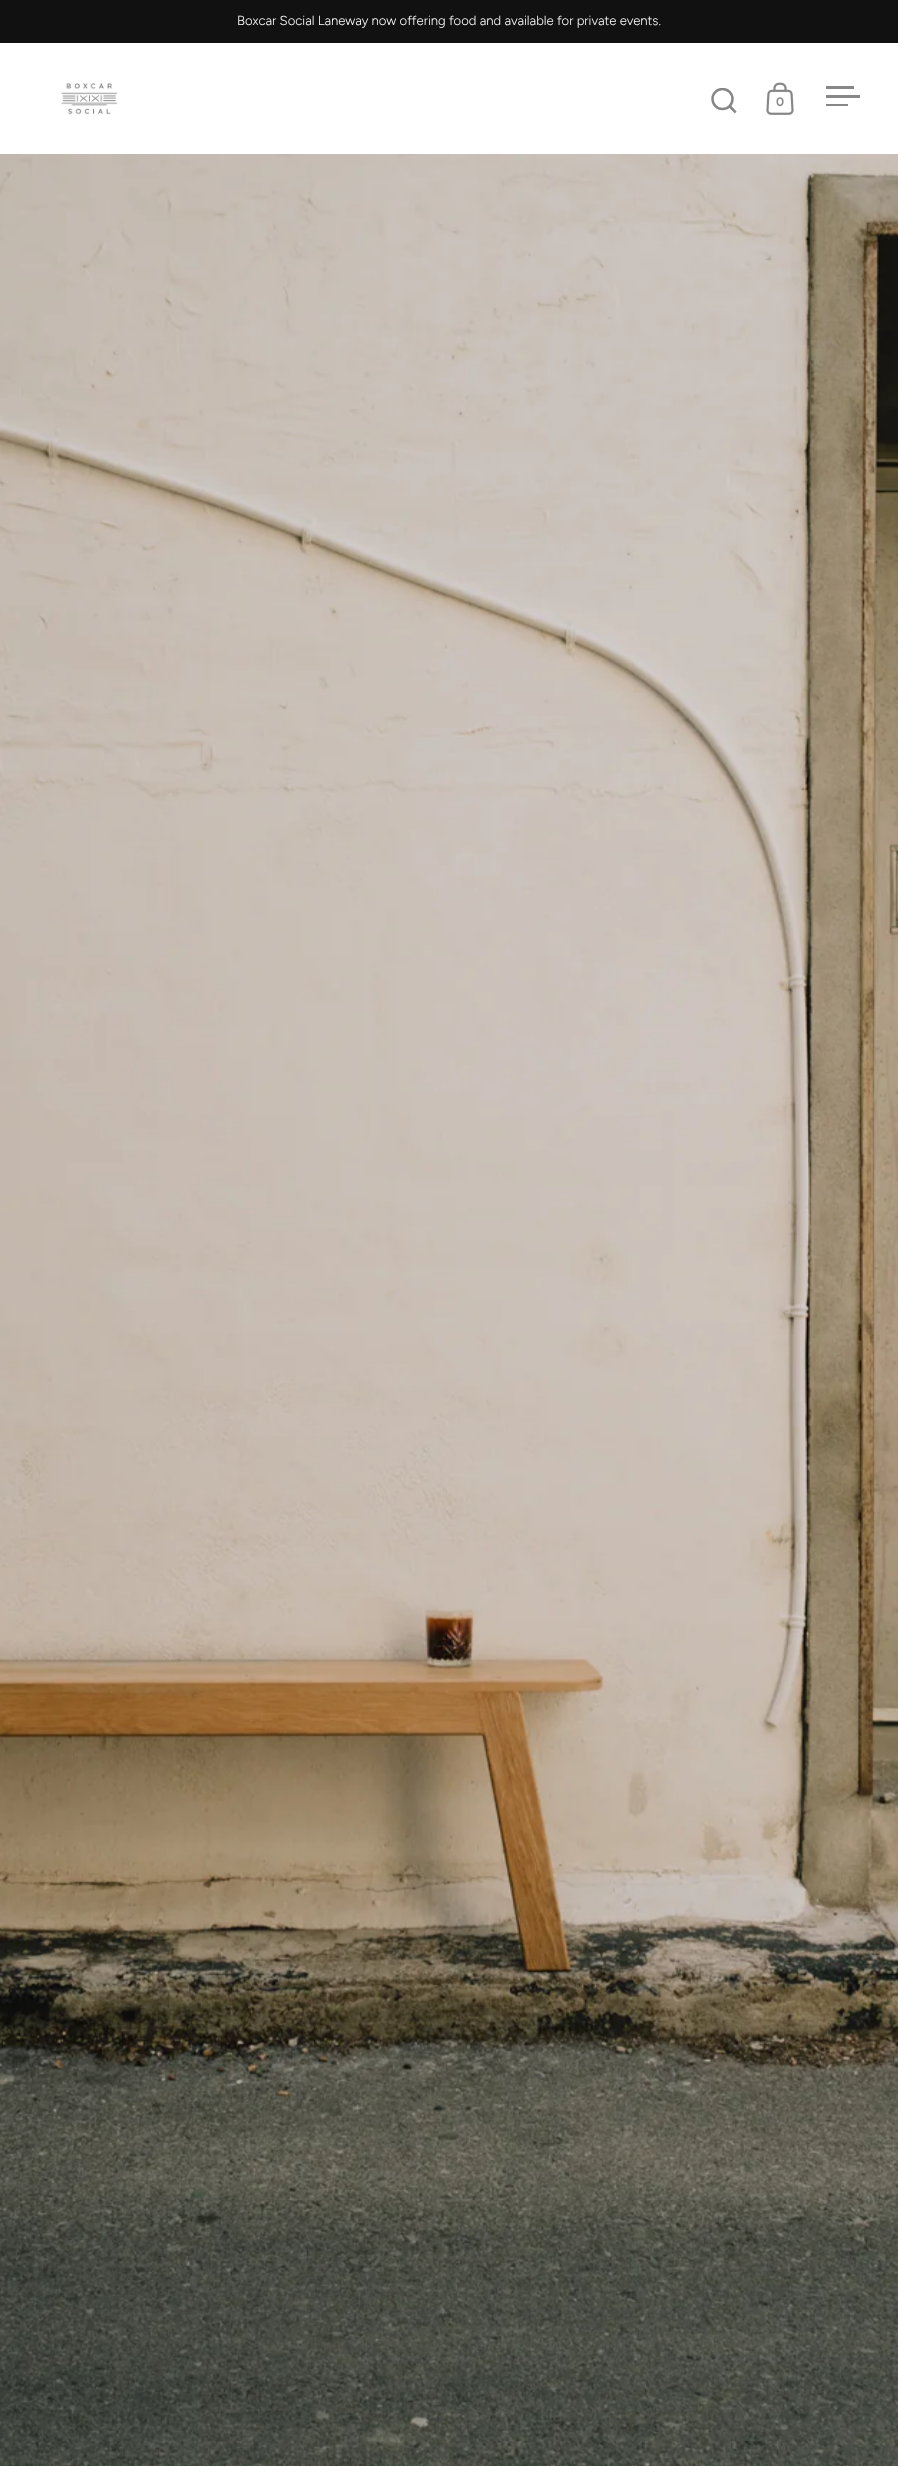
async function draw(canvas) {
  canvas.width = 898
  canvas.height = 2476
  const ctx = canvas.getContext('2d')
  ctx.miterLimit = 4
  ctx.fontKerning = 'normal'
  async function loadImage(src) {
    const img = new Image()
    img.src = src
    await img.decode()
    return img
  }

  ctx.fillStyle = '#fff'
  ctx.fillRect(0, 0, 898, 2476)
  ctx.fillStyle = '#111'
  ctx.fillRect(0, 0, 898, 43)
  ctx.font = '300 13.1px Figtree'
  ctx.fillStyle = '#fff'
  ctx.fillText('Boxcar Social Laneway now offering food and available for private events.', 237, 25)
  ctx.drawImage(await loadImage('image0.png'), 61, 83, 57, 32)
  ctx.save()
  ctx.beginPath()
  ctx.rect(711, 88, 27, 26)
  ctx.clip()
  ctx.beginPath()
  ctx.arc(722.5, 99, 10, 0, 2 * Math.PI)
  ctx.strokeStyle = '#878787'
  ctx.lineWidth = 2.5
  ctx.stroke()
  ctx.restore()
  ctx.fillStyle = '#878787'
  ctx.beginPath()
  ctx.moveTo(729, 107.5)
  ctx.lineTo(731, 105.5)
  ctx.lineTo(736.5, 111.5)
  ctx.lineTo(735, 113.5)
  ctx.closePath()
  ctx.fill()
  ctx.drawImage(await loadImage('image1.png'), 766, 82, 28, 33)
  ctx.font = 'bold 12px Figtree'
  ctx.fillText('0', 776, 106)
  ctx.fillRect(826, 86, 28, 3)
  ctx.fillRect(826, 95, 34, 3)
  ctx.fillRect(826, 104, 22, 2)
  ctx.drawImage(await loadImage('image2.png'), 0, 154, 898, 2312)
}

draw(document.querySelector('canvas'))
